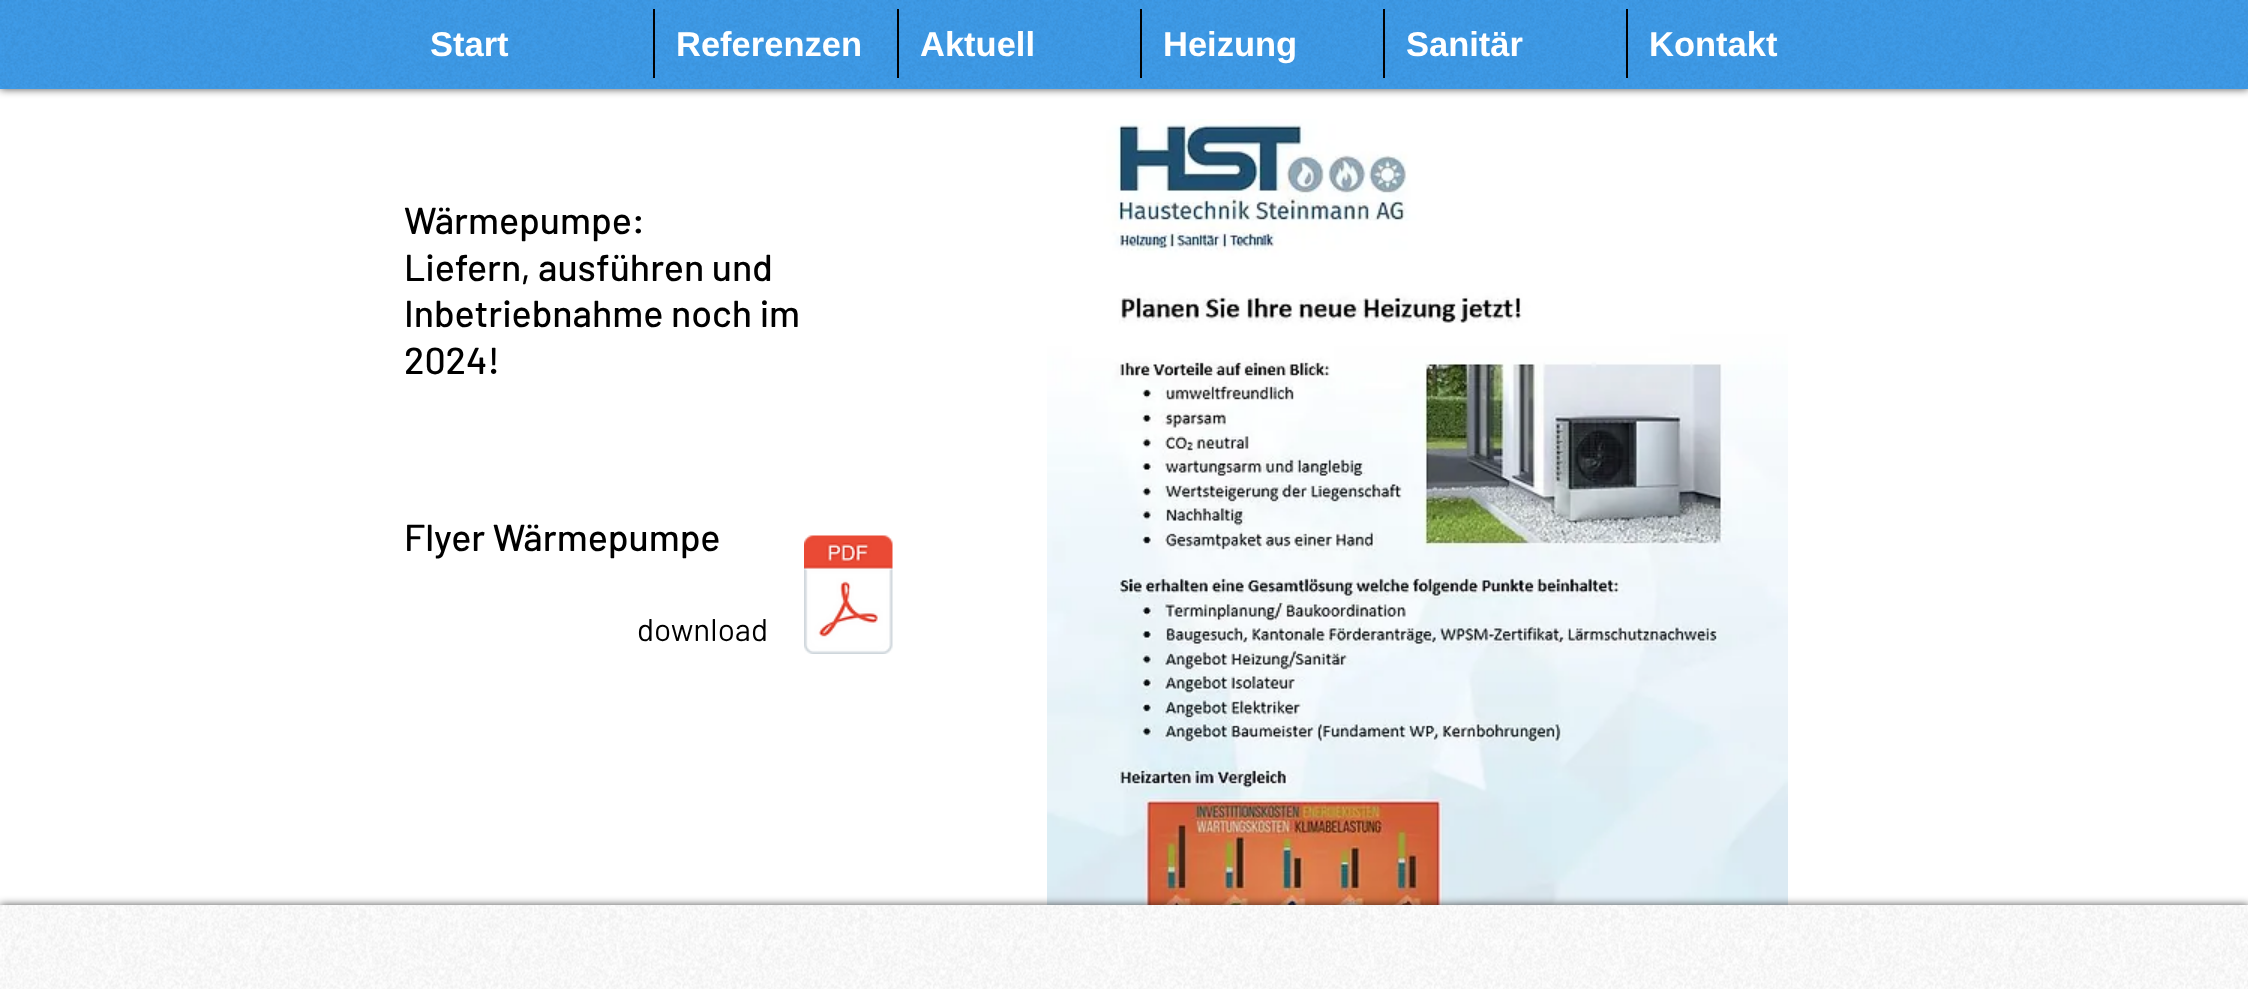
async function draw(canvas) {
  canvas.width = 2248
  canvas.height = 989
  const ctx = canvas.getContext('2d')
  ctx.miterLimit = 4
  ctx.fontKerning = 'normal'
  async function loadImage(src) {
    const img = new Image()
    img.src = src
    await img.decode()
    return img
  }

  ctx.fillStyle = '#fff'
  ctx.fillRect(0, 0, 2248, 989)
  ctx.fillStyle = '#000000b3'
  ctx.filter = 'blur(4px)'
  ctx.beginPath()
  ctx.rect(0, 0, 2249, 89)
  ctx.fill()
  ctx.filter = 'none'
  ctx.fillStyle = '#3d9be9'
  ctx.fillRect(0, 0, 2248, 89)
  ctx.drawImage(await loadImage('image0.png'), 0, 0, 2248, 89)
  ctx.font = 'bold 34.5px Liberation Sans'
  ctx.fillStyle = '#fff'
  ctx.fillText('Start', 430, 56)
  ctx.fillStyle = '#000'
  ctx.fillRect(653, 9, 2, 69)
  ctx.fillStyle = '#fff'
  ctx.fillText('Referenzen', 676, 56)
  ctx.fillStyle = '#000'
  ctx.fillRect(897, 9, 2, 69)
  ctx.fillStyle = '#fff'
  ctx.fillText('Aktuell', 920, 56)
  ctx.fillStyle = '#000'
  ctx.fillRect(1140, 9, 2, 69)
  ctx.fillStyle = '#fff'
  ctx.fillText('Heizung', 1163, 56)
  ctx.fillStyle = '#000'
  ctx.fillRect(1383, 9, 2, 69)
  ctx.fillStyle = '#fff'
  ctx.fillText('Sanitär', 1406, 56)
  ctx.fillStyle = '#000'
  ctx.fillRect(1626, 9, 2, 69)
  ctx.fillStyle = '#fff'
  ctx.fillText('Kontakt', 1649, 56)
  ctx.font = '500 37.5px Barlow'
  ctx.fillStyle = '#000'
  ctx.fillText('Wärmepumpe:', 404, 234)
  ctx.fillText('Liefern, ausführen und', 404, 281)
  ctx.fillText('Inbetriebnahme noch im', 404, 327)
  ctx.fillText('2024!', 404, 374)
  ctx.fillText('Flyer Wärmepumpe', 404, 551)
  ctx.drawImage(await loadImage('image1.png'), 1047, 119, 741, 786)
  ctx.font = '31.5px Barlow'
  ctx.fillText('download', 637, 641)
  ctx.drawImage(await loadImage('image2.png'), 804, 535, 89, 119)
  ctx.fillStyle = '#000000b3'
  ctx.filter = 'blur(4px)'
  ctx.beginPath()
  ctx.rect(0, 905, 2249, 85)
  ctx.fill()
  ctx.filter = 'none'
  ctx.fillStyle = '#fff'
  ctx.fillRect(0, 905, 2248, 84)
  ctx.drawImage(await loadImage('image3.png'), 0, 905, 2248, 84)
}

draw(document.querySelector('canvas'))
